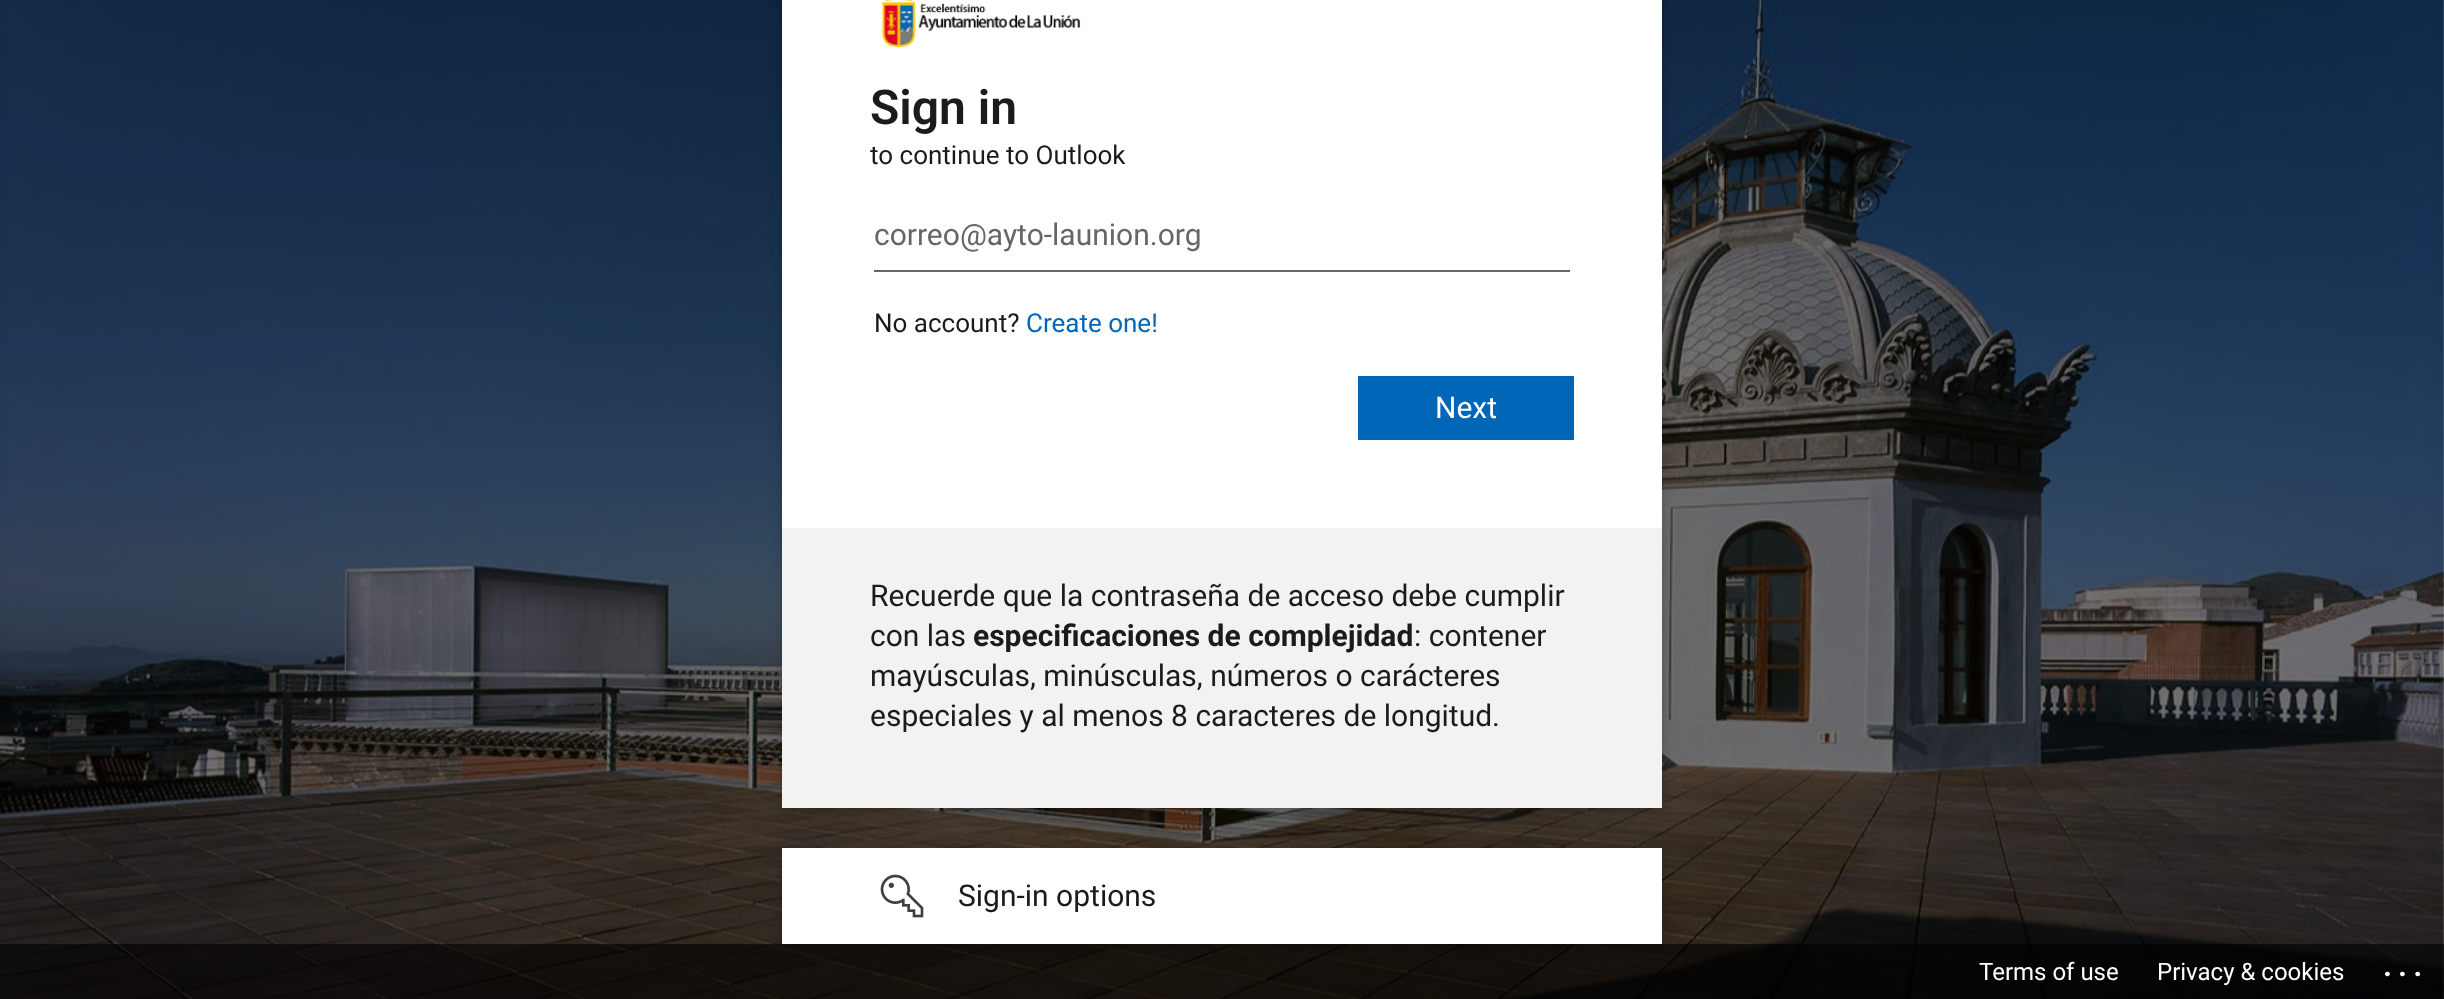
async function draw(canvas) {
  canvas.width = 2444
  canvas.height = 999
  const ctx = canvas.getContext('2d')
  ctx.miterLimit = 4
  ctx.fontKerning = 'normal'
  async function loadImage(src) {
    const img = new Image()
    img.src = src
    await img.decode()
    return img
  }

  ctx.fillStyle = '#fff'
  ctx.fillRect(0, 0, 2444, 999)
  ctx.drawImage(await loadImage('image0.png'), 0, 0, 2444, 999)
  ctx.fillStyle = '#00000033'
  ctx.filter = 'blur(6px)'
  ctx.beginPath()
  ctx.rect(782, -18, 880, 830)
  ctx.fill()
  ctx.filter = 'none'
  ctx.fillStyle = '#fff'
  ctx.fillRect(782, 0, 880, 528)
  ctx.drawImage(await loadImage('image1.png'), 882, 0, 199, 47)
  ctx.font = '600 48px Roboto'
  ctx.fillStyle = '#1b1b1b'
  ctx.fillText('Sign in', 870, 124)
  ctx.font = '26px Roboto'
  ctx.fillText('to continue to Outlook', 870, 164)
  ctx.fillStyle = '#666'
  ctx.fillRect(874, 270, 696, 2)
  ctx.font = '30px Roboto'
  ctx.fillText('correo@ayto-launion.org', 874, 245)
  ctx.font = '26px Roboto'
  ctx.fillStyle = '#1b1b1b'
  ctx.fillText('No account?', 874, 332)
  ctx.fillStyle = '#0067b8'
  ctx.fillText('Create one!', 1026, 332)
  ctx.fillRect(1358, 376, 216, 64)
  ctx.font = '30px Roboto'
  ctx.fillStyle = '#fff'
  ctx.fillText('Next', 1435, 418)
  ctx.fillStyle = '#f2f2f2'
  ctx.fillRect(782, 528, 880, 280)
  ctx.fillStyle = '#1b1b1b'
  ctx.fillText('Recuerde que la contraseña de acceso debe cumplir', 870, 606)
  ctx.fillText('con las', 870, 646)
  ctx.font = 'bold 30px Roboto'
  ctx.fillText('especificaciones de complejidad', 973, 646)
  ctx.font = '30px Roboto'
  ctx.fillText(': contener', 1414, 646)
  ctx.fillText('mayúsculas, minúsculas, números o carácteres', 870, 686)
  ctx.fillText('especiales y al menos 8 caracteres de longitud.', 870, 726)
  ctx.fillStyle = '#00000033'
  ctx.filter = 'blur(6px)'
  ctx.beginPath()
  ctx.rect(782, 852, 880, 96)
  ctx.fill()
  ctx.filter = 'none'
  ctx.fillStyle = '#fff'
  ctx.fillRect(782, 848, 880, 96)
  ctx.drawImage(await loadImage('image2.png'), 880, 874, 44, 44)
  ctx.fillStyle = '#1b1b1b'
  ctx.fillText('Sign-in options', 958, 906)
  ctx.fillStyle = '#00000099'
  ctx.fillRect(0, 944, 2444, 55)
  ctx.font = '24px Roboto'
  ctx.fillStyle = '#fff'
  ctx.fillText('Terms of use', 1979, 980)
  ctx.fillText('Privacy & cookies', 2157, 980)
  ctx.letterSpacing = '6px'
  ctx.font = '600 32px Roboto'
  ctx.fillText('...', 2383, 976)
}

draw(document.querySelector('canvas'))
